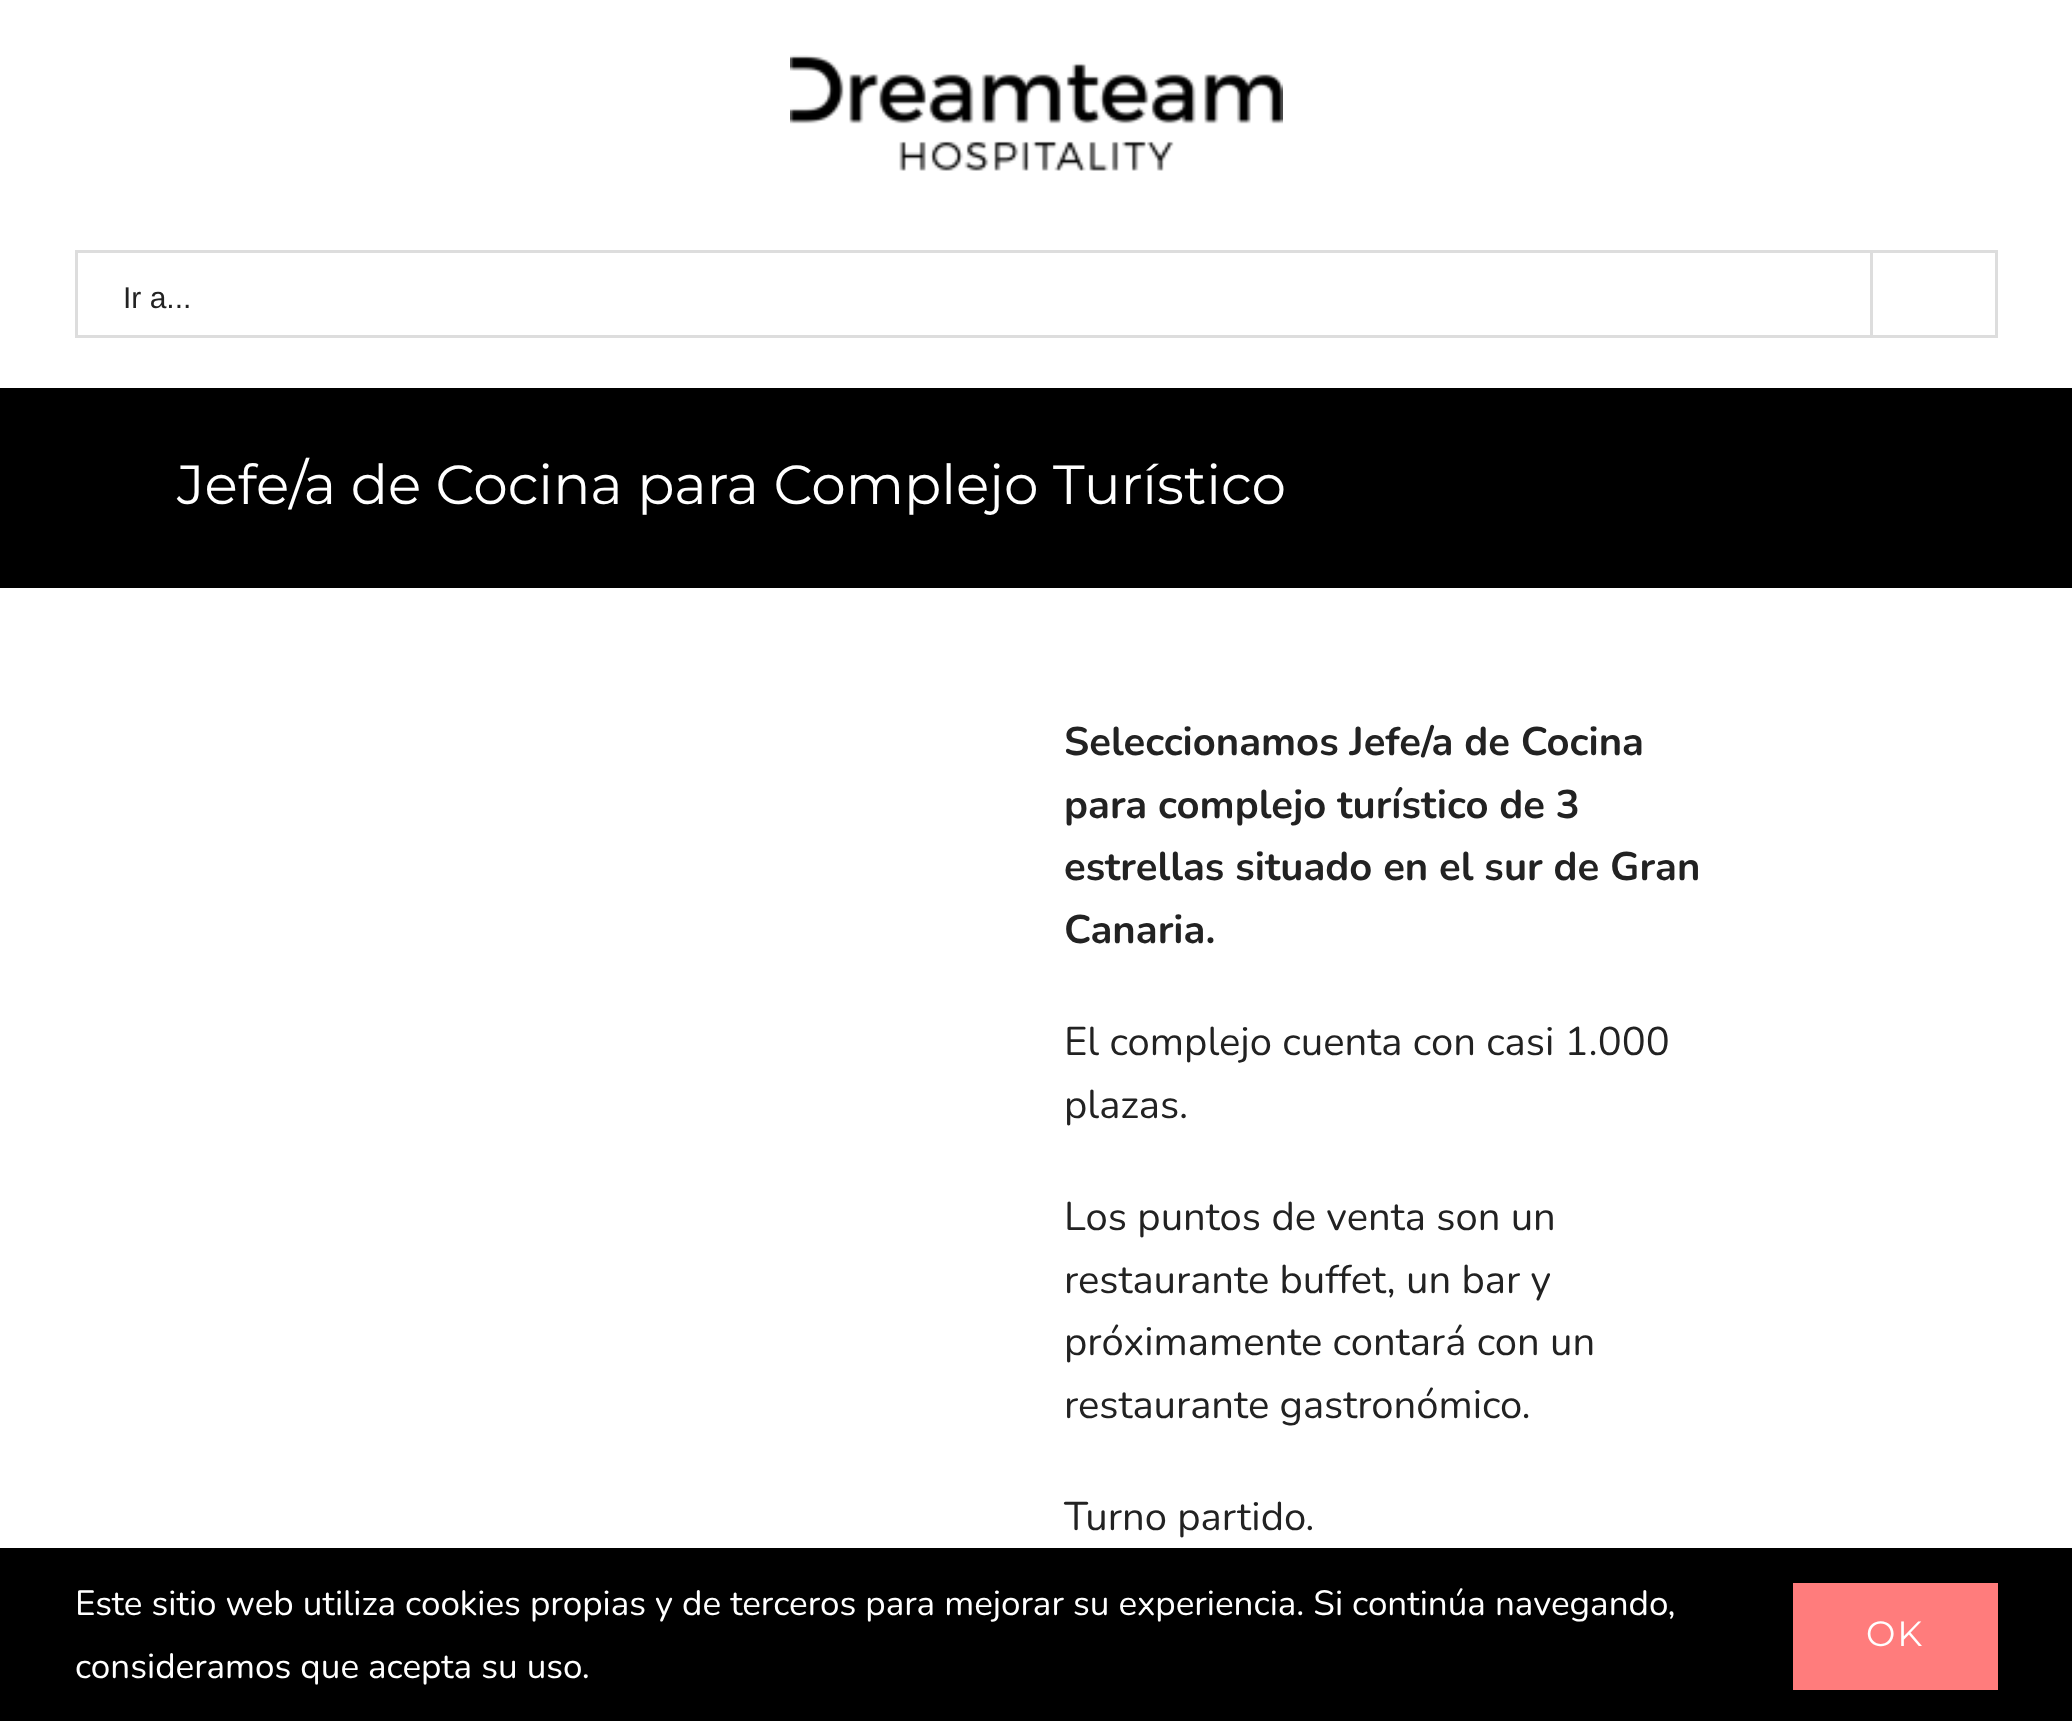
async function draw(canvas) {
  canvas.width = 2072
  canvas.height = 1721
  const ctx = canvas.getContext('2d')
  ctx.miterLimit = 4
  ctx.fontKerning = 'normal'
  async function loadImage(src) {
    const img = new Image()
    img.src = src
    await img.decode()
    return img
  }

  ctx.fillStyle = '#fff'
  ctx.fillRect(0, 0, 2072, 1721)
  ctx.drawImage(await loadImage('image0.png'), 790, 55, 493, 116)
  ctx.strokeStyle = '#ddd'
  ctx.lineWidth = 3
  ctx.strokeRect(76.5, 251.5, 1920, 85)
  ctx.font = '30px Liberation Sans'
  ctx.fillStyle = '#222'
  ctx.fillText('Ir a...', 123, 308)
  ctx.fillStyle = '#ddd'
  ctx.fillRect(1870, 253, 3, 82)
  ctx.fillStyle = '#000'
  ctx.fillRect(0, 388, 2072, 200)
  ctx.font = '100 55px Montserrat'
  ctx.fillStyle = '#fff'
  ctx.fillText('Jefe/a de Cocina para Complejo Turístico', 177, 504)
  ctx.font = '200 40px Nunito'
  ctx.fillStyle = '#222'
  ctx.fillText('Seleccionamos Jefe/a de Cocina', 1064, 755)
  ctx.fillText('para complejo turístico de 3', 1064, 818)
  ctx.fillText('estrellas situado en el sur de Gran', 1064, 880)
  ctx.fillText('Canaria.', 1064, 943)
  ctx.font = '200 40px "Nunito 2"'
  ctx.fillText('El complejo cuenta con casi 1.000', 1064, 1055)
  ctx.fillText('plazas.', 1064, 1118)
  ctx.fillText('Los puntos de venta son un', 1064, 1230)
  ctx.fillText('restaurante buffet, un bar y', 1064, 1293)
  ctx.fillText('próximamente contará con un', 1064, 1355)
  ctx.fillText('restaurante gastronómico.', 1064, 1418)
  ctx.fillText('Turno partido.', 1064, 1530)
  ctx.fillStyle = '#000'
  ctx.fillRect(0, 1548, 2072, 173)
  ctx.font = '200 35px "Nunito 2"'
  ctx.fillStyle = '#fff'
  ctx.fillText('Este sitio web utiliza cookies propias y de terceros para mejorar su experiencia. Si continúa navegando,', 75, 1615)
  ctx.fillText('consideramos que acepta su uso.', 75, 1678)
  ctx.fillStyle = '#ff7c7c'
  ctx.fillRect(1793, 1583, 205, 107)
  ctx.letterSpacing = '2px'
  ctx.font = '100 35px Montserrat'
  ctx.fillStyle = '#fff'
  ctx.fillText('OK', 1866, 1646)
}

draw(document.querySelector('canvas'))
